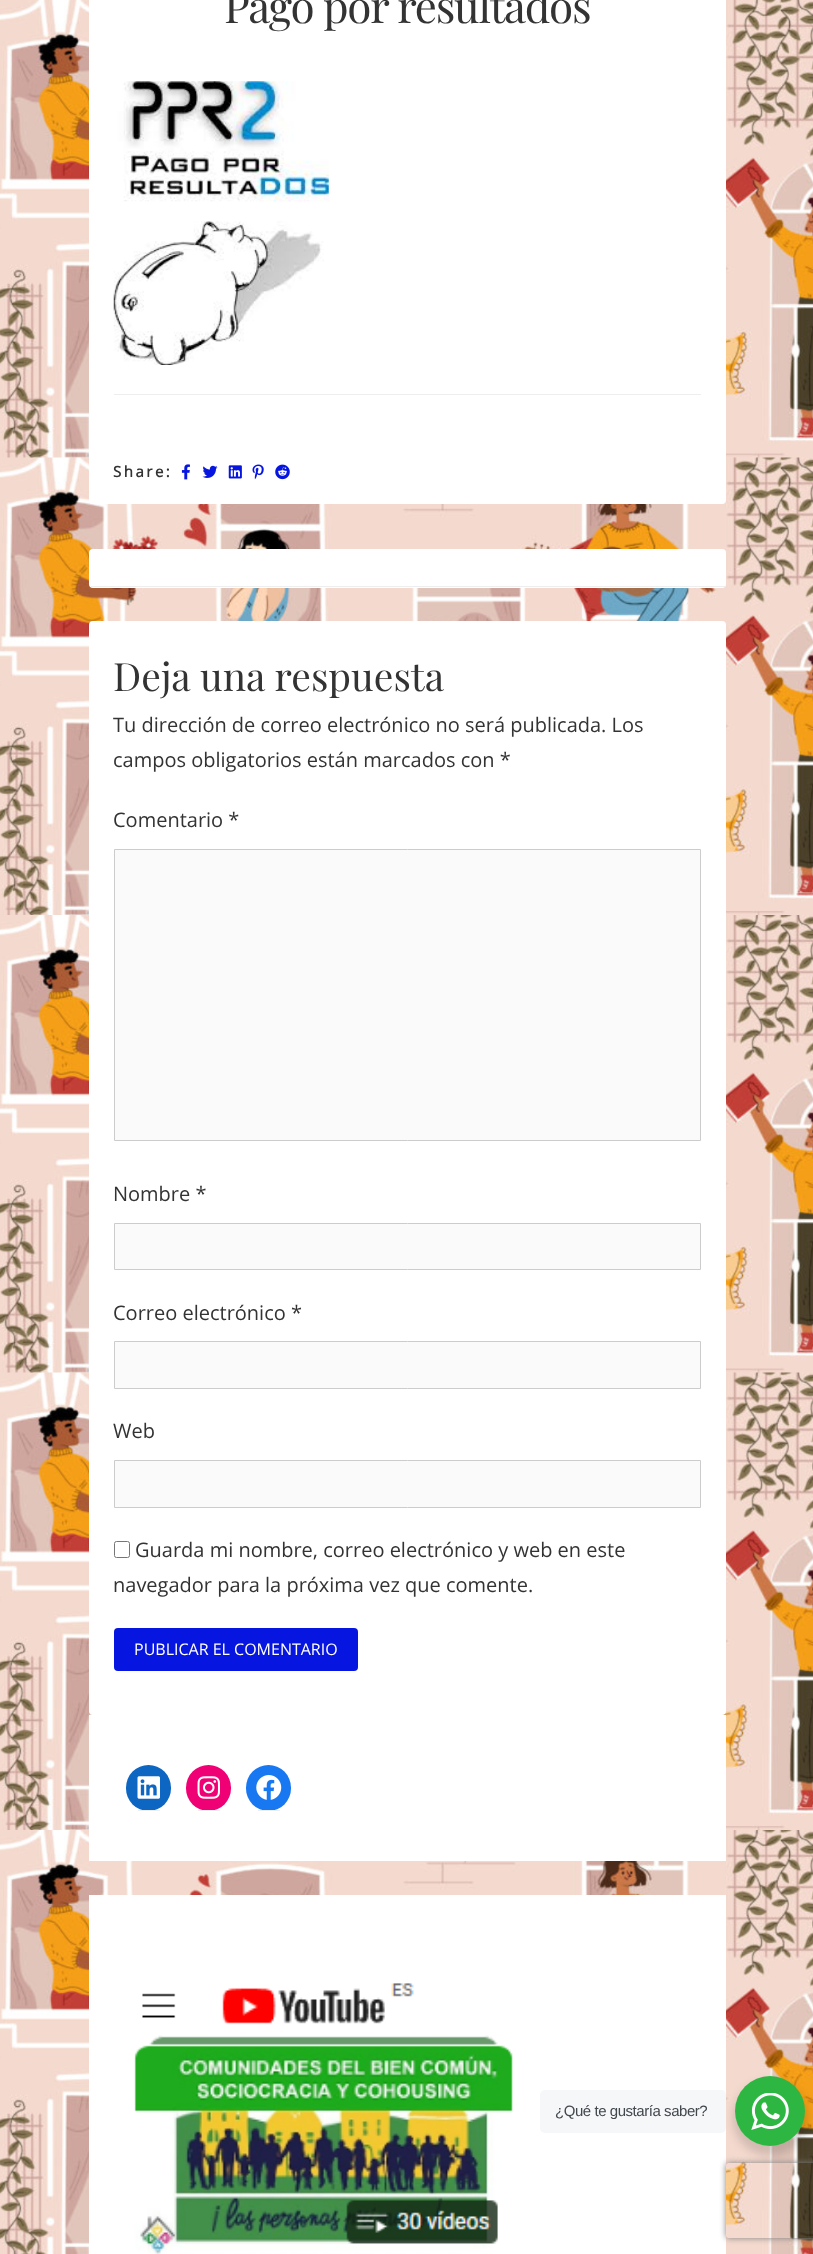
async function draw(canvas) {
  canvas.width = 813
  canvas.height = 2254
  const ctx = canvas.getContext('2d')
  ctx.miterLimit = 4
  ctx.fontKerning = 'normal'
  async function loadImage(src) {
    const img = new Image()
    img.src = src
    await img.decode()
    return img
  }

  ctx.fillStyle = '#fff'
  ctx.fillRect(0, 0, 813, 2254)
  ctx.drawImage(await loadImage('image0.png'), 0, 0, 813, 2254)
  ctx.beginPath()
  ctx.roundRect(89, -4, 637, 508, 4)
  ctx.fill()
  ctx.letterSpacing = '-1.25px'
  ctx.font = '44px Playfair Display'
  ctx.fillStyle = '#333'
  ctx.fillText('Pago por resultados', 224, 23)
  ctx.drawImage(await loadImage('image1.png'), 113, 81, 216, 284)
  ctx.fillStyle = '#eee'
  ctx.fillRect(114, 394, 587, 1)
  ctx.letterSpacing = '2.5px'
  ctx.font = 'bold 15px Open Sans'
  ctx.fillStyle = '#333'
  ctx.fillText('Share:', 113, 477)
  ctx.drawImage(await loadImage('image2.png'), 181, 464, 9, 16)
  ctx.drawImage(await loadImage('image3.png'), 202, 465, 16, 13)
  ctx.drawImage(await loadImage('image4.png'), 228, 465, 14, 14)
  ctx.drawImage(await loadImage('image5.png'), 252, 464, 12, 16)
  ctx.drawImage(await loadImage('image6.png'), 275, 464, 15, 16)
  ctx.fillStyle = '#fff'
  ctx.beginPath()
  ctx.roundRect(89, 549, 637, 39, 4)
  ctx.fill()
  ctx.fillStyle = '#eee'
  ctx.fillRect(91, 586, 634, 1)
  ctx.fillStyle = '#fff'
  ctx.beginPath()
  ctx.roundRect(89, 621, 637, 1094, 4)
  ctx.fill()
  ctx.letterSpacing = '0px'
  ctx.font = '39px Playfair Display'
  ctx.fillStyle = '#333'
  ctx.fillText('Deja una respuesta', 113, 691)
  ctx.font = '20px Open Sans'
  ctx.fillText('Tu dirección de correo electrónico no será publicada. Los', 113, 732)
  ctx.fillText('campos obligatorios están marcados con *', 113, 767)
  ctx.fillText('Comentario *', 113, 827)
  ctx.fillStyle = '#fafafa'
  ctx.beginPath()
  ctx.rect(114.5, 849.5, 586, 291)
  ctx.fill()
  ctx.strokeStyle = '#ccc'
  ctx.stroke()
  ctx.fillStyle = '#333'
  ctx.fillText('Nombre *', 113, 1201)
  ctx.fillStyle = '#fafafa'
  ctx.beginPath()
  ctx.rect(114.5, 1223.5, 586, 46)
  ctx.fill()
  ctx.stroke()
  ctx.fillStyle = '#333'
  ctx.fillText('Correo electrónico *', 113, 1320)
  ctx.fillStyle = '#fafafa'
  ctx.beginPath()
  ctx.rect(114.5, 1341.5, 586, 47)
  ctx.fill()
  ctx.stroke()
  ctx.fillStyle = '#333'
  ctx.fillText('Web', 113, 1438)
  ctx.fillStyle = '#fafafa'
  ctx.beginPath()
  ctx.rect(114.5, 1460.5, 586, 47)
  ctx.fill()
  ctx.stroke()
  ctx.beginPath()
  ctx.roundRect(114.5, 1541.5, 15, 16, 2)
  ctx.strokeStyle = '#767676'
  ctx.stroke()
  ctx.fillStyle = '#333'
  ctx.fillText('Guarda mi nombre, correo electrónico y web en este', 135, 1557)
  ctx.fillText('navegador para la próxima vez que comente.', 113, 1592)
  ctx.fillStyle = '#0615e0'
  ctx.beginPath()
  ctx.roundRect(114, 1628, 244, 43, 4)
  ctx.fill()
  ctx.font = '16px Open Sans'
  ctx.fillStyle = '#fff'
  ctx.fillText('PUBLICAR EL COMENTARIO', 134, 1655)
  ctx.fillRect(89, 1715, 637, 146)
  ctx.fillStyle = '#0d66c2'
  ctx.beginPath()
  ctx.roundRect(126, 1765, 45, 46, 22.5)
  ctx.fill()
  ctx.fillStyle = '#eee'
  ctx.fillRect(138, 1810, 22, 1)
  ctx.drawImage(await loadImage('image7.png'), 137, 1776, 23, 23)
  ctx.fillStyle = '#f00075'
  ctx.beginPath()
  ctx.roundRect(186, 1765, 45, 46, 22.5)
  ctx.fill()
  ctx.fillStyle = '#eee'
  ctx.fillRect(198, 1810, 22, 1)
  ctx.drawImage(await loadImage('image8.png'), 197, 1776, 23, 23)
  ctx.fillStyle = '#1778f2'
  ctx.beginPath()
  ctx.roundRect(246, 1765, 45, 46, 22.5)
  ctx.fill()
  ctx.fillStyle = '#eee'
  ctx.fillRect(258, 1810, 22, 1)
  ctx.drawImage(await loadImage('image9.png'), 256, 1775, 26, 25)
  ctx.fillStyle = '#fff'
  ctx.fillRect(89, 1895, 637, 359)
  ctx.drawImage(await loadImage('image10.png'), 134, 1983, 379, 271)
  ctx.fillStyle = '#00000024'
  ctx.filter = 'blur(5px)'
  ctx.beginPath()
  ctx.roundRect(733, 2081, 75, 75, 37.5)
  ctx.fill()
  ctx.filter = 'none'
  ctx.fillStyle = '#f5f7f9'
  ctx.beginPath()
  ctx.roundRect(540, 2090, 186, 43, 5)
  ctx.fill()
  ctx.letterSpacing = '-0.45px'
  ctx.font = '15px Liberation Sans'
  ctx.fillStyle = '#43474e'
  ctx.fillText('¿Qué te gustaría saber?', 555, 2116)
  ctx.fillStyle = '#2db742'
  ctx.beginPath()
  ctx.arc(770, 2111, 35, 0, 2 * Math.PI)
  ctx.fill()
  ctx.drawImage(await loadImage('image11.png'), 751, 2093, 38, 37)
  ctx.save()
  ctx.beginPath()
  ctx.moveTo(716, 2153)
  ctx.lineTo(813, 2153)
  ctx.lineTo(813, 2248)
  ctx.lineTo(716, 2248)
  ctx.closePath()
  ctx.moveTo(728.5, 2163)
  ctx.lineTo(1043.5, 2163)
  ctx.bezierCurveTo(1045, 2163, 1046, 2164, 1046, 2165.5)
  ctx.lineTo(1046, 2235.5)
  ctx.bezierCurveTo(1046, 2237, 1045, 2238, 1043.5, 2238)
  ctx.lineTo(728.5, 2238)
  ctx.bezierCurveTo(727, 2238, 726, 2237, 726, 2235.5)
  ctx.lineTo(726, 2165.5)
  ctx.bezierCurveTo(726, 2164, 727, 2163, 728.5, 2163)
  ctx.closePath()
  ctx.clip('evenodd')
  ctx.fillStyle = '#808080'
  ctx.filter = 'blur(3px)'
  ctx.beginPath()
  ctx.roundRect(726, 2163, 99, 75, 2.5)
  ctx.fill()
  ctx.filter = 'none'
  ctx.restore()
}

draw(document.querySelector('canvas'))
